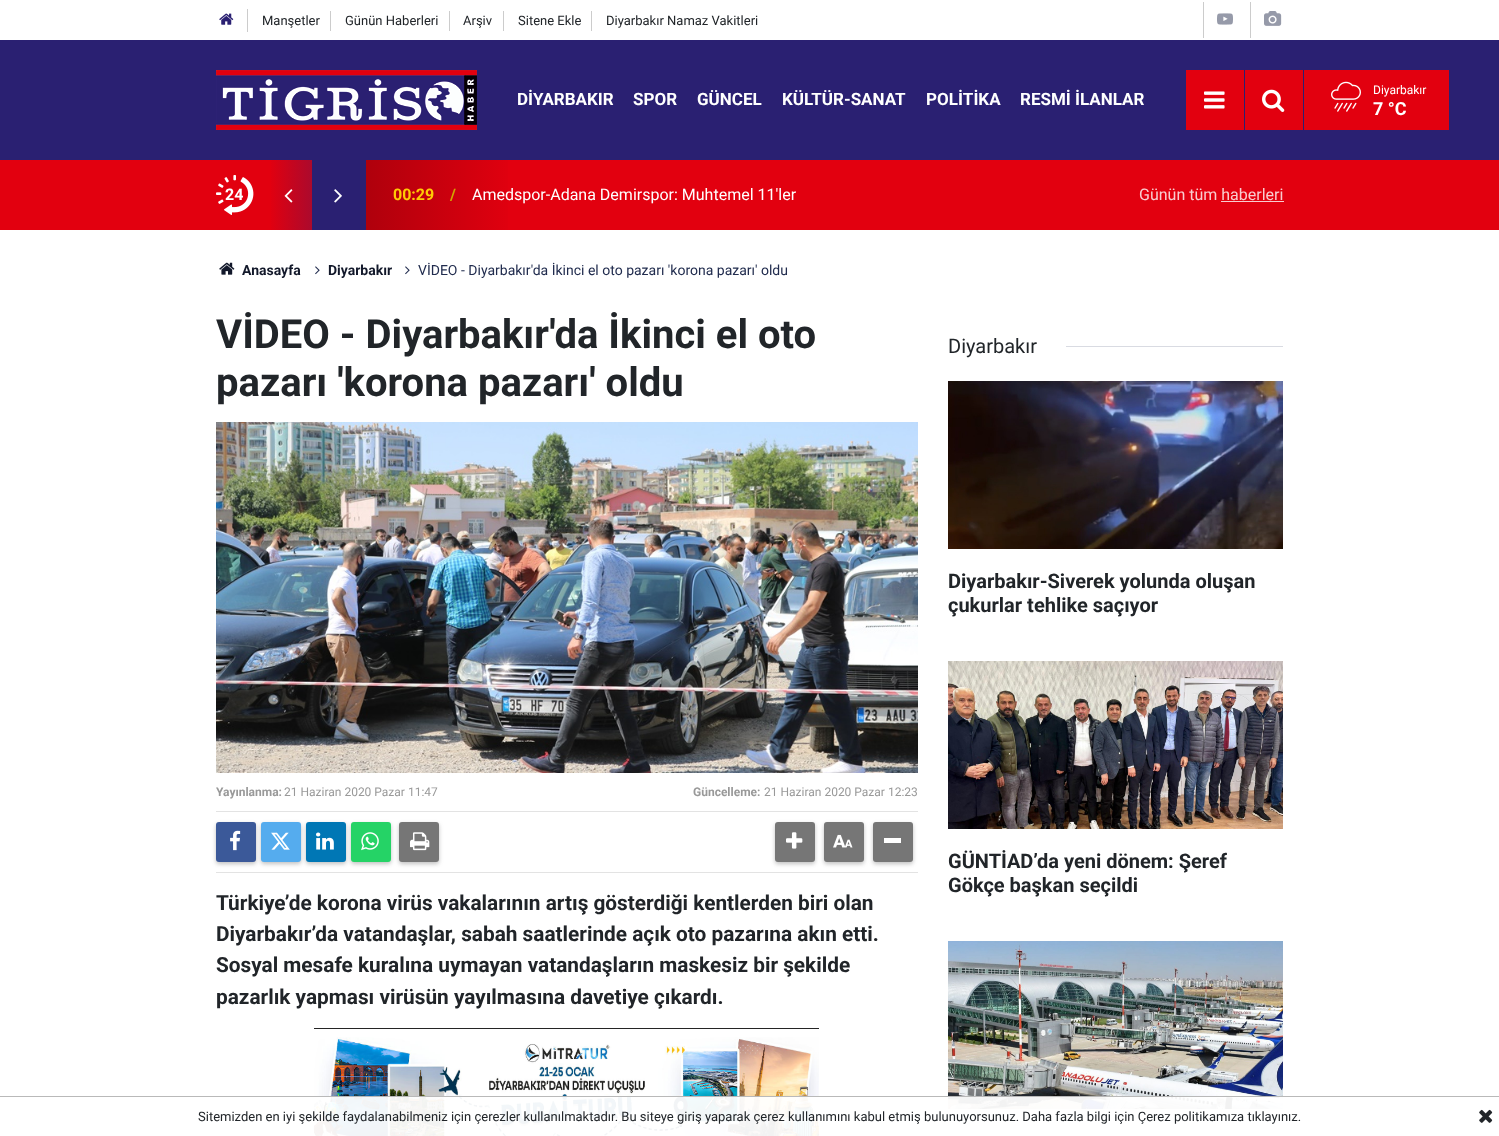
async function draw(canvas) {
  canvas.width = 1499
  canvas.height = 1136
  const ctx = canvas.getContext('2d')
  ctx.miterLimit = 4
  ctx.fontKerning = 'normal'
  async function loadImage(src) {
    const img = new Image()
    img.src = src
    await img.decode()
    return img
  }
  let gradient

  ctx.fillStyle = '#fff'
  ctx.fillRect(0, 0, 1499, 1136)
  ctx.fillStyle = '#2a2072'
  ctx.fillRect(0, 40, 1499, 120)
  ctx.fillStyle = '#ccc'
  ctx.fillRect(247, 9, 1, 23)
  ctx.drawImage(await loadImage('image0.png'), 219, 13, 15, 12)
  ctx.fillRect(330, 11, 1, 20)
  ctx.font = '13px Roboto'
  ctx.fillStyle = '#212529'
  ctx.fillText('Manşetler', 262, 25)
  ctx.fillStyle = '#ccc'
  ctx.fillRect(449, 11, 1, 20)
  ctx.fillStyle = '#212529'
  ctx.fillText('Günün Haberleri', 345, 25)
  ctx.fillStyle = '#ccc'
  ctx.fillRect(503, 11, 1, 20)
  ctx.fillStyle = '#212529'
  ctx.fillText('Arşiv', 463, 25)
  ctx.fillStyle = '#ccc'
  ctx.fillRect(591, 11, 1, 20)
  ctx.fillStyle = '#212529'
  ctx.fillText('Sitene Ekle', 518, 25)
  ctx.fillText('Diyarbakır Namaz Vakitleri', 606, 25)
  ctx.fillStyle = '#ccc'
  ctx.fillRect(1203, 2, 1, 36)
  ctx.drawImage(await loadImage('image1.png'), 1217, 13, 16, 12)
  ctx.fillRect(1250, 2, 1, 36)
  ctx.drawImage(await loadImage('image2.png'), 1264, 11, 18, 15)
  ctx.drawImage(await loadImage('image3.png'), 216, 70, 261, 60)
  ctx.font = 'bold 17px Roboto'
  ctx.fillStyle = '#fff'
  ctx.fillText('DİYARBAKIR', 517, 105)
  ctx.fillText('SPOR', 633, 105)
  ctx.fillText('GÜNCEL', 697, 105)
  ctx.fillText('KÜLTÜR-SANAT', 782, 105)
  ctx.fillText('POLİTİKA', 926, 105)
  ctx.fillText('RESMİ İLANLAR', 1020, 105)
  ctx.fillStyle = '#e2000f'
  ctx.fillRect(1186, 70, 58, 60)
  ctx.drawImage(await loadImage('image4.png'), 1204, 91, 21, 18)
  ctx.fillRect(1245, 70, 58, 60)
  ctx.drawImage(await loadImage('image5.png'), 1262, 89, 23, 23)
  ctx.fillRect(1304, 70, 145, 60)
  ctx.drawImage(await loadImage('image6.png'), 1331, 81, 30, 31)
  ctx.font = '12px Roboto'
  ctx.fillStyle = '#fff'
  ctx.fillText('Diyarbakır', 1373, 94)
  ctx.font = 'bold 18px Roboto'
  ctx.fillText('7 °C', 1373, 115)
  ctx.fillStyle = '#e2000f'
  ctx.fillRect(0, 160, 1499, 70)
  gradient = ctx.createLinearGradient(216, 195, 1284, 195)
  gradient.addColorStop(0.05, '#e2000f')
  gradient.addColorStop(0.09, '#ab0a2d')
  gradient.addColorStop(0.09, '#2a2072')
  gradient.addColorStop(0.14, '#2a2072')
  gradient.addColorStop(0.14, '#af000c')
  gradient.addColorStop(0.28, '#e2000f')
  ctx.fillStyle = gradient
  ctx.fillRect(271, 160, 237, 70)
  ctx.drawImage(await loadImage('image7.png'), 216, 175, 38, 40)
  ctx.font = 'bold 16px Roboto'
  ctx.fillStyle = '#fff'
  ctx.fillText('24', 225, 200)
  ctx.drawImage(await loadImage('image8.png'), 284, 189, 9, 14)
  ctx.drawImage(await loadImage('image9.png'), 334, 189, 8, 14)
  ctx.fillStyle = '#ffcb05'
  ctx.fillText('00:29', 393, 200)
  ctx.fillStyle = '#d1a600'
  ctx.fillText('/', 450, 200)
  ctx.font = '16px Roboto'
  ctx.fillStyle = '#fff'
  ctx.fillText('Amedspor-Adana Demirspor: Muhtemel 11\'ler', 472, 200)
  ctx.fillStyle = '#f9cccf'
  ctx.fillText('Günün tüm haberleri', 1139, 200)
  ctx.fillRect(1221, 201, 63, 1)
  ctx.drawImage(await loadImage('image10.png'), 219, 262, 16, 13)
  ctx.font = 'bold 14px Roboto'
  ctx.fillStyle = '#12182a'
  ctx.fillText('Anasayfa', 242, 275)
  ctx.drawImage(await loadImage('image11.png'), 315, 266, 5, 9)
  ctx.fillText('Diyarbakır', 328, 275)
  ctx.drawImage(await loadImage('image11.png'), 405, 266, 5, 9)
  ctx.font = '14px Roboto'
  ctx.fillStyle = '#212c4e'
  ctx.fillText('VİDEO - Diyarbakır\'da İkinci el oto pazarı \'korona pazarı\' oldu', 418, 275)
  ctx.font = 'bold 40px Roboto'
  ctx.fillStyle = '#212529'
  ctx.fillText('VİDEO - Diyarbakır\'da İkinci el oto', 216, 348)
  ctx.fillText('pazarı \'korona pazarı\' oldu', 216, 396)
  ctx.drawImage(await loadImage('image12.png'), 216, 422, 702, 351)
  ctx.font = 'bold 12px Roboto'
  ctx.fillStyle = '#999'
  ctx.fillText('Yayınlanma:', 216, 796)
  ctx.font = '12px Roboto'
  ctx.fillText('21 Haziran 2020 Pazar 11:47', 284, 796)
  ctx.font = 'bold 12px Roboto'
  ctx.fillText('Güncelleme:', 693, 796)
  ctx.font = '12px Roboto'
  ctx.fillText('21 Haziran 2020 Pazar 12:23', 764, 796)
  ctx.fillStyle = '#e3e3e3'
  ctx.fillRect(216, 811, 702, 1)
  ctx.fillRect(216, 872, 702, 1)
  ctx.fillStyle = '#3232324d'
  ctx.filter = 'blur(2px)'
  ctx.beginPath()
  ctx.roundRect(216, 824, 40, 40, 3)
  ctx.fill()
  ctx.filter = 'none'
  ctx.fillStyle = '#3b5999'
  ctx.beginPath()
  ctx.roundRect(216, 822, 40, 40, 3)
  ctx.fill()
  ctx.drawImage(await loadImage('image13.png'), 230, 830, 11, 21)
  ctx.fillStyle = '#3232324d'
  ctx.filter = 'blur(2px)'
  ctx.beginPath()
  ctx.roundRect(261, 824, 40, 40, 3)
  ctx.fill()
  ctx.filter = 'none'
  ctx.fillStyle = '#55acee'
  ctx.beginPath()
  ctx.roundRect(261, 822, 40, 40, 3)
  ctx.fill()
  ctx.drawImage(await loadImage('image14.png'), 271, 832, 19, 18)
  ctx.fillStyle = '#3232324d'
  ctx.filter = 'blur(2px)'
  ctx.beginPath()
  ctx.roundRect(306, 824, 40, 40, 3)
  ctx.fill()
  ctx.filter = 'none'
  ctx.fillStyle = '#0077b5'
  ctx.beginPath()
  ctx.roundRect(306, 822, 40, 40, 3)
  ctx.fill()
  ctx.drawImage(await loadImage('image15.png'), 316, 832, 18, 18)
  ctx.fillStyle = '#3232324d'
  ctx.filter = 'blur(2px)'
  ctx.beginPath()
  ctx.roundRect(351, 824, 40, 40, 3)
  ctx.fill()
  ctx.filter = 'none'
  ctx.fillStyle = '#25d366'
  ctx.beginPath()
  ctx.roundRect(351, 822, 40, 40, 3)
  ctx.fill()
  ctx.drawImage(await loadImage('image16.png'), 361, 832, 18, 19)
  ctx.fillStyle = '#3232324d'
  ctx.filter = 'blur(2px)'
  ctx.beginPath()
  ctx.roundRect(399, 824, 40, 40, 3)
  ctx.fill()
  ctx.filter = 'none'
  ctx.fillStyle = '#767676'
  ctx.beginPath()
  ctx.roundRect(399, 822, 40, 40, 3)
  ctx.fill()
  ctx.drawImage(await loadImage('image17.png'), 410, 832, 20, 19)
  ctx.fillStyle = '#3232324d'
  ctx.filter = 'blur(2px)'
  ctx.beginPath()
  ctx.roundRect(775, 824, 40, 40, 3)
  ctx.fill()
  ctx.filter = 'none'
  ctx.fillStyle = '#767676'
  ctx.beginPath()
  ctx.roundRect(775, 822, 40, 40, 3)
  ctx.fill()
  ctx.drawImage(await loadImage('image18.png'), 786, 832, 17, 17)
  ctx.fillStyle = '#3232324d'
  ctx.filter = 'blur(2px)'
  ctx.beginPath()
  ctx.roundRect(824, 824, 40, 40, 3)
  ctx.fill()
  ctx.filter = 'none'
  ctx.fillStyle = '#767676'
  ctx.beginPath()
  ctx.roundRect(824, 822, 40, 40, 3)
  ctx.fill()
  ctx.drawImage(await loadImage('image19.png'), 833, 834, 20, 14)
  ctx.fillStyle = '#3232324d'
  ctx.filter = 'blur(2px)'
  ctx.beginPath()
  ctx.roundRect(873, 824, 40, 40, 3)
  ctx.fill()
  ctx.filter = 'none'
  ctx.fillStyle = '#767676'
  ctx.beginPath()
  ctx.roundRect(873, 822, 40, 40, 3)
  ctx.fill()
  ctx.fillStyle = '#fff'
  ctx.fillRect(884, 838, 17, 5)
  ctx.font = 'bold 20.8px Roboto'
  ctx.fillStyle = '#212529'
  ctx.fillText('Türkiye’de korona virüs vakalarının artış gösterdiği kentlerden biri olan', 216, 910)
  ctx.fillText('Diyarbakır’da vatandaşlar, sabah saatlerinde açık oto pazarına akın etti.', 216, 941)
  ctx.fillText('Sosyal mesafe kuralına uymayan vatandaşların maskesiz bir şekilde', 216, 972)
  ctx.fillText('pazarlık yapması virüsün yayılmasına davetiye çıkardı.', 216, 1004)
  ctx.drawImage(await loadImage('image20.png'), 314, 1028, 505, 108)
  ctx.font = '20px Roboto'
  ctx.fillText('Diyarbakır', 948, 353)
  ctx.fillStyle = '#d9dbe2'
  ctx.fillRect(1066, 346, 217, 1)
  ctx.drawImage(await loadImage('image21.png'), 948, 381, 335, 168)
  ctx.font = 'bold 20px Roboto'
  ctx.fillStyle = '#212529'
  ctx.fillText('Diyarbakır-Siverek yolunda oluşan', 948, 588)
  ctx.fillText('çukurlar tehlike saçıyor', 948, 612)
  ctx.drawImage(await loadImage('image22.png'), 948, 661, 335, 168)
  ctx.fillText('GÜNTİAD’da yeni dönem: Şeref', 948, 868)
  ctx.fillText('Gökçe başkan seçildi', 948, 892)
  ctx.drawImage(await loadImage('image23.png'), 948, 941, 335, 168)
  ctx.fillStyle = '#fffffff2'
  ctx.fillRect(314, 1097, 969, 39)
  ctx.fillStyle = '#b9b9b9'
  ctx.fillRect(0, 1096, 1499, 1)
  ctx.font = '13px Roboto'
  ctx.fillStyle = '#212529'
  ctx.fillText('Sitemizden en iyi şekilde faydalanabilmeniz için çerezler kullanılmaktadır. Bu siteye giriş yaparak çerez kullanımını kabul etmiş bulunuyorsunuz. Daha fazla bilgi için Çerez politikamıza tıklayınız.', 198, 1121)
  ctx.drawImage(await loadImage('image24.png'), 1479, 1109, 14, 14)
}

draw(document.querySelector('canvas'))
